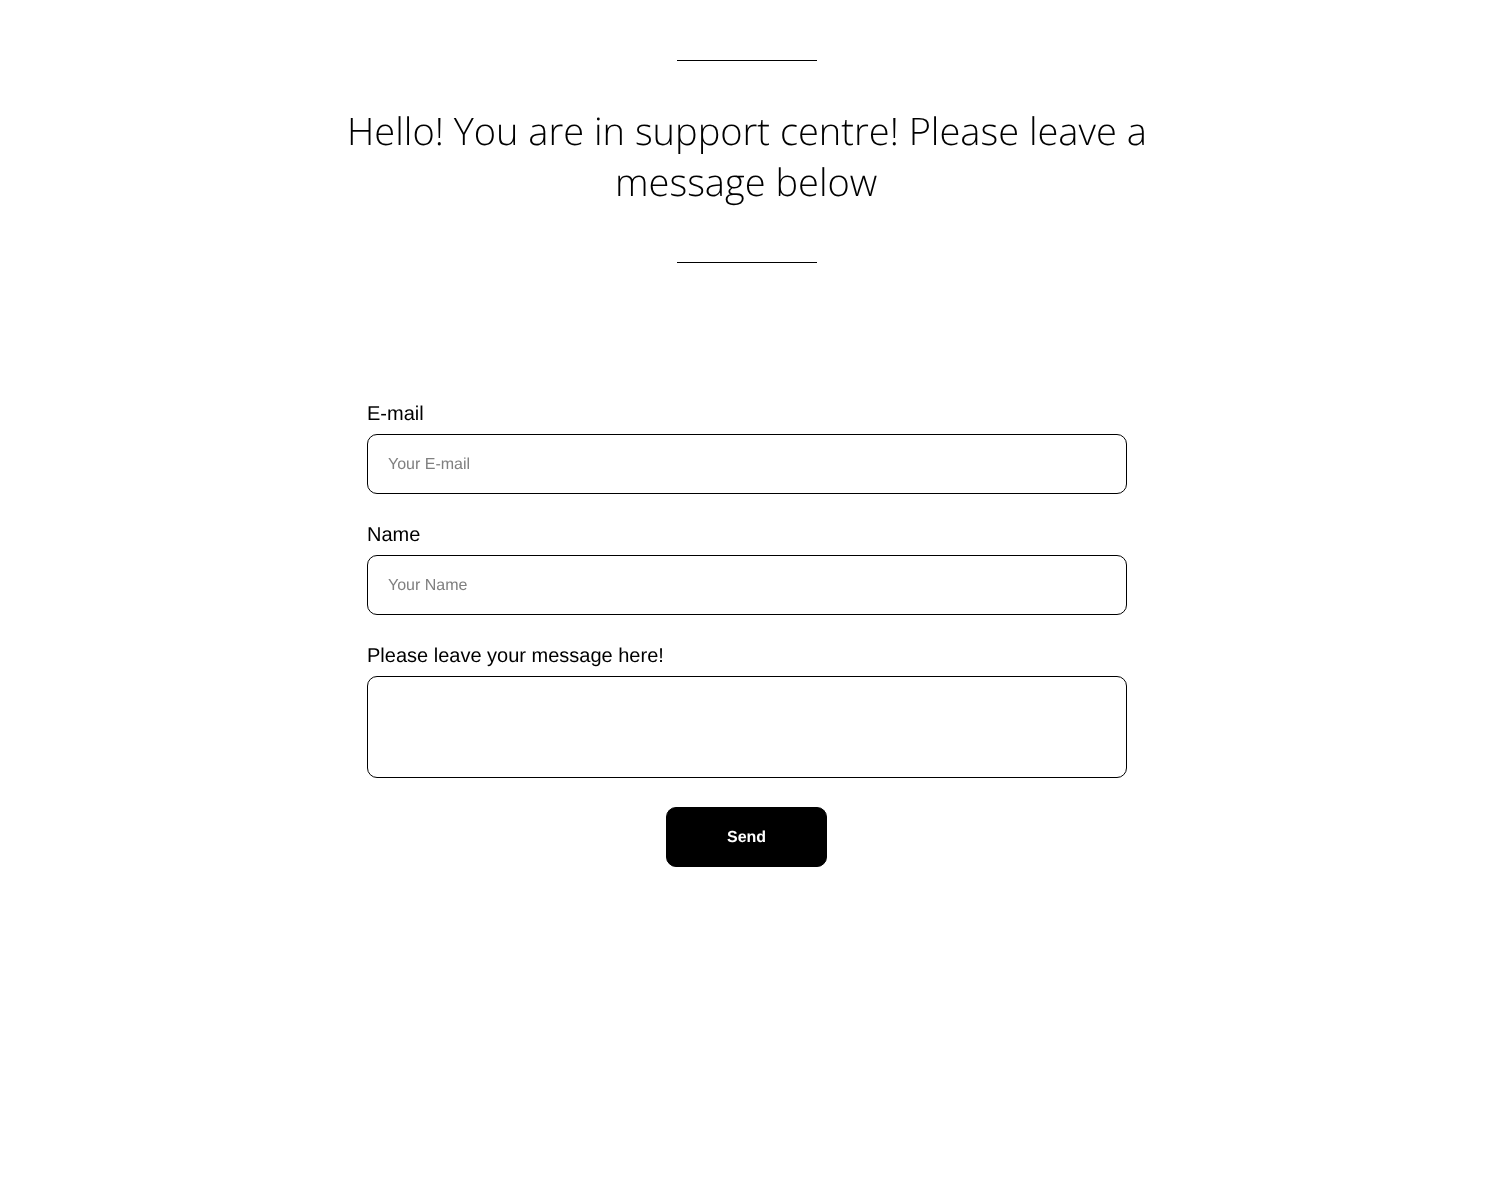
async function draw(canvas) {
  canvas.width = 1493
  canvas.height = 1192
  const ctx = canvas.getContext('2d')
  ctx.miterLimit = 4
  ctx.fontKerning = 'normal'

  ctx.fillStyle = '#fff'
  ctx.fillRect(0, 0, 1493, 1192)
  ctx.fillStyle = '#000'
  ctx.fillRect(677, 60, 140, 1)
  ctx.font = '300 38px Open Sans'
  ctx.fillText('Hello! You are in support centre! Please leave a', 347, 145)
  ctx.fillText('message below', 615, 196)
  ctx.fillRect(677, 262, 140, 1)
  ctx.font = '20px Liberation Sans'
  ctx.fillText('E-mail', 367, 420)
  ctx.beginPath()
  ctx.roundRect(367.5, 434.5, 759, 59, 9.5)
  ctx.strokeStyle = '#000'
  ctx.stroke()
  ctx.font = '16px Liberation Sans'
  ctx.fillStyle = '#808080'
  ctx.fillText('Your E-mail', 388, 469)
  ctx.font = '20px Liberation Sans'
  ctx.fillStyle = '#000'
  ctx.fillText('Name', 367, 541)
  ctx.beginPath()
  ctx.roundRect(367.5, 555.5, 759, 59, 9.5)
  ctx.stroke()
  ctx.font = '16px Liberation Sans'
  ctx.fillStyle = '#808080'
  ctx.fillText('Your Name', 388, 590)
  ctx.font = '20px Liberation Sans'
  ctx.fillStyle = '#000'
  ctx.fillText('Please leave your message here!', 367, 662)
  ctx.beginPath()
  ctx.roundRect(367.5, 676.5, 759, 101, 9.5)
  ctx.stroke()
  ctx.beginPath()
  ctx.roundRect(666.5, 807.5, 160, 59, 9.5)
  ctx.fill()
  ctx.stroke()
  ctx.font = 'bold 16px Liberation Sans'
  ctx.fillStyle = '#fff'
  ctx.fillText('Send', 727, 842)
}

draw(document.querySelector('canvas'))
